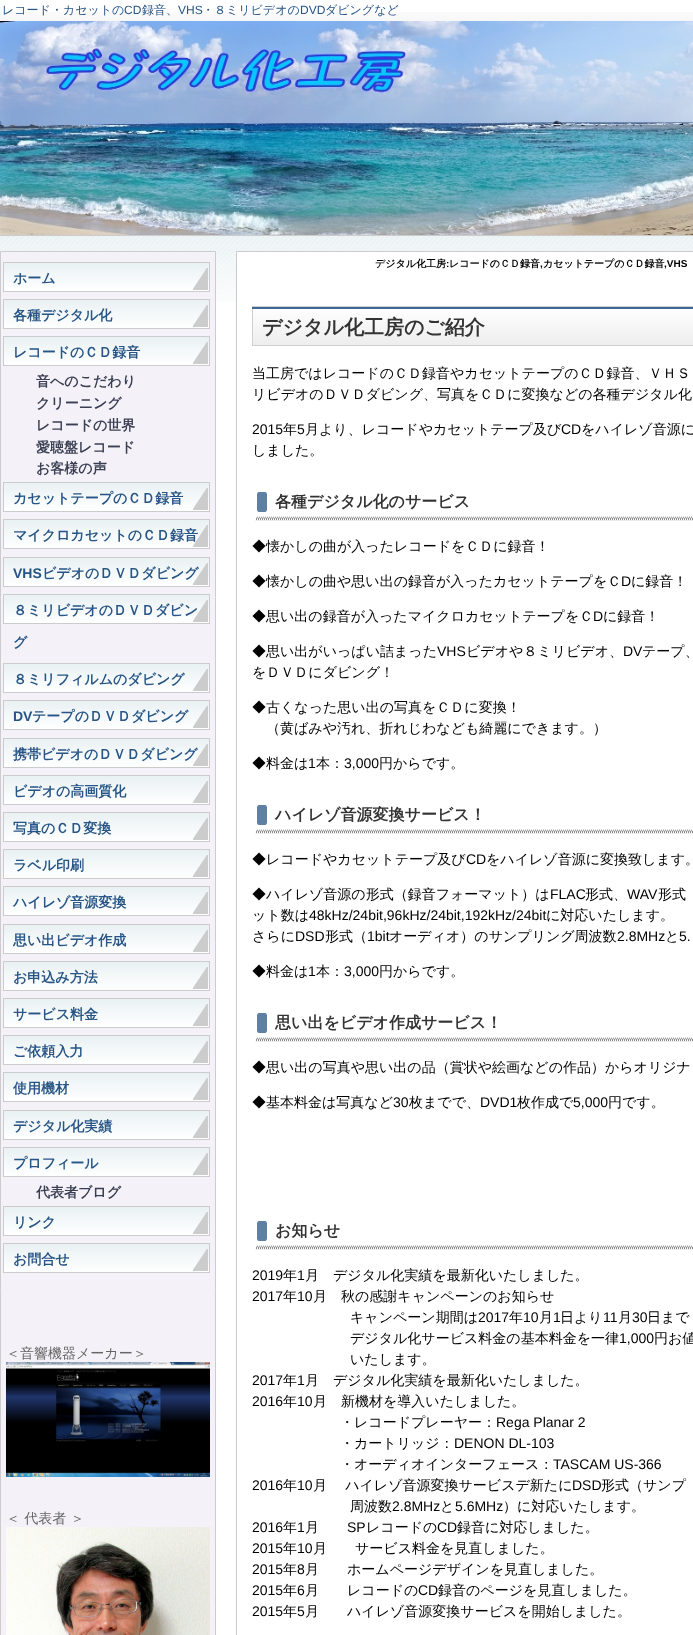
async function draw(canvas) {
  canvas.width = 693
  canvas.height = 1635
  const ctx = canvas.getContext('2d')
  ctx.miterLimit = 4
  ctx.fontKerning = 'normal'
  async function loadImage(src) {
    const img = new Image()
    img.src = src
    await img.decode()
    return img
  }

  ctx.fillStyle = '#fff'
  ctx.fillRect(0, 0, 693, 1635)
  ctx.drawImage(await loadImage('image0.png'), 0, 12, 693, 290)
  ctx.font = '500 12px WenQuanYi Zen Hei'
  ctx.fillStyle = '#275586'
  ctx.fillText('レコード・カセットの', 2, 14)
  ctx.font = '12px Liberation Sans'
  ctx.fillText('CD', 124, 14)
  ctx.font = '500 12px WenQuanYi Zen Hei'
  ctx.fillText('録音、', 142, 14)
  ctx.font = '12px Liberation Sans'
  ctx.fillText('VHS', 178, 14)
  ctx.font = '500 12px WenQuanYi Zen Hei'
  ctx.fillText('・８ミリビデオの', 202, 14)
  ctx.font = '12px Liberation Sans'
  ctx.fillText('DVD', 300, 14)
  ctx.font = '500 12px WenQuanYi Zen Hei'
  ctx.fillText('ダビングなど', 325, 14)
  ctx.drawImage(await loadImage('image1.png'), 0, 21, 693, 214)
  ctx.fillStyle = '#ccc'
  ctx.fillRect(0, 235, 693, 1)
  ctx.fillStyle = '#f4f2f8'
  ctx.beginPath()
  ctx.rect(0.5, 251.5, 215, 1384)
  ctx.fill()
  ctx.strokeStyle = '#ccc'
  ctx.stroke()
  ctx.drawImage(await loadImage('image2.png'), 3, 262, 207, 30)
  ctx.font = 'bold 14px WenQuanYi Zen Hei'
  ctx.fillStyle = '#275586'
  ctx.fillText('ホーム', 13, 283)
  ctx.drawImage(await loadImage('image2.png'), 3, 299, 207, 30)
  ctx.fillText('各種デジタル化', 13, 320)
  ctx.drawImage(await loadImage('image2.png'), 3, 336, 207, 30)
  ctx.fillText('レコードのＣＤ録音', 13, 357)
  ctx.fillStyle = '#393e52'
  ctx.fillText('音へのこだわり', 36, 386)
  ctx.fillText('クリーニング', 36, 408)
  ctx.fillText('レコードの世界', 36, 430)
  ctx.fillText('愛聴盤レコード', 36, 452)
  ctx.fillText('お客様の声', 36, 473)
  ctx.drawImage(await loadImage('image2.png'), 3, 482, 207, 30)
  ctx.fillStyle = '#275586'
  ctx.fillText('カセットテープのＣＤ録音', 13, 503)
  ctx.drawImage(await loadImage('image2.png'), 3, 519, 207, 30)
  ctx.fillText('マイクロカセットのＣＤ録音', 13, 540)
  ctx.drawImage(await loadImage('image2.png'), 3, 557, 207, 30)
  ctx.font = 'bold 14px Liberation Sans'
  ctx.fillText('VHS', 13, 578)
  ctx.font = 'bold 14px WenQuanYi Zen Hei'
  ctx.fillText('ビデオのＤＶＤダビング', 42, 578)
  ctx.drawImage(await loadImage('image2.png'), 3, 594, 207, 30)
  ctx.fillText('８ミリビデオのＤＶＤダビン', 13, 615)
  ctx.fillText('グ', 13, 647)
  ctx.drawImage(await loadImage('image2.png'), 3, 663, 207, 30)
  ctx.fillText('８ミリフィルムのダビング', 13, 684)
  ctx.drawImage(await loadImage('image2.png'), 3, 700, 207, 30)
  ctx.font = 'bold 14px Liberation Sans'
  ctx.fillText('DV', 13, 721)
  ctx.font = 'bold 14px WenQuanYi Zen Hei'
  ctx.fillText('テープのＤＶＤダビング', 32, 721)
  ctx.drawImage(await loadImage('image2.png'), 3, 738, 207, 30)
  ctx.fillText('携帯ビデオのＤＶＤダビング', 13, 759)
  ctx.drawImage(await loadImage('image2.png'), 3, 775, 207, 30)
  ctx.fillText('ビデオの高画質化', 13, 796)
  ctx.drawImage(await loadImage('image2.png'), 3, 812, 207, 30)
  ctx.fillText('写真のＣＤ変換', 13, 833)
  ctx.drawImage(await loadImage('image2.png'), 3, 849, 207, 30)
  ctx.fillText('ラベル印刷', 13, 870)
  ctx.drawImage(await loadImage('image2.png'), 3, 886, 207, 30)
  ctx.fillText('ハイレゾ音源変換', 13, 907)
  ctx.drawImage(await loadImage('image2.png'), 3, 924, 207, 30)
  ctx.fillText('思い出ビデオ作成', 13, 945)
  ctx.drawImage(await loadImage('image2.png'), 3, 961, 207, 30)
  ctx.fillText('お申込み方法', 13, 982)
  ctx.drawImage(await loadImage('image2.png'), 3, 998, 207, 30)
  ctx.fillText('サービス料金', 13, 1019)
  ctx.drawImage(await loadImage('image2.png'), 3, 1035, 207, 30)
  ctx.fillText('ご依頼入力', 13, 1056)
  ctx.drawImage(await loadImage('image2.png'), 3, 1072, 207, 30)
  ctx.fillText('使用機材', 13, 1093)
  ctx.drawImage(await loadImage('image2.png'), 3, 1110, 207, 30)
  ctx.fillText('デジタル化実績', 13, 1131)
  ctx.drawImage(await loadImage('image2.png'), 3, 1147, 207, 30)
  ctx.fillText('プロフィール', 13, 1168)
  ctx.fillStyle = '#393e52'
  ctx.fillText('代表者ブログ', 36, 1197)
  ctx.drawImage(await loadImage('image2.png'), 3, 1206, 207, 30)
  ctx.fillStyle = '#275586'
  ctx.fillText('リンク', 13, 1227)
  ctx.drawImage(await loadImage('image2.png'), 3, 1243, 207, 30)
  ctx.fillText('お問合せ', 13, 1264)
  ctx.font = '500 14px WenQuanYi Zen Hei'
  ctx.fillStyle = '#666'
  ctx.fillText('＜音響機器メーカー＞', 6, 1358)
  ctx.drawImage(await loadImage('image3.png'), 6, 1362, 204, 115)
  ctx.fillText('＜ 代表者 ＞', 6, 1523)
  ctx.drawImage(await loadImage('image4.png'), 6, 1527, 204, 108)
  ctx.fillStyle = '#fff'
  ctx.fillRect(237, 252, 456, 50)
  ctx.strokeRect(236.5, 251.5, 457, 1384)
  ctx.font = 'bold 10px WenQuanYi Zen Hei'
  ctx.fillStyle = '#000'
  ctx.fillText('デジタル化工房', 375, 267)
  ctx.font = 'bold 10px Liberation Sans'
  ctx.fillText(':', 446, 267)
  ctx.font = 'bold 10px WenQuanYi Zen Hei'
  ctx.fillText('レコードのＣＤ録音 カセットテープのＣＤ録音', 449, 267)
  ctx.font = 'bold 10px Liberation Sans'
  ctx.fillText(',VHS', 664, 267)
  ctx.fillText(',', 540, 267)
  ctx.drawImage(await loadImage('image5.png'), 252, 306, 441, 40)
  ctx.font = 'bold 20px WenQuanYi Zen Hei'
  ctx.fillStyle = '#333'
  ctx.fillText('デジタル化工房のご紹介', 262, 334)
  ctx.font = '500 14px WenQuanYi Zen Hei'
  ctx.fillStyle = '#000'
  ctx.fillText('当工房ではレコードのＣＤ録音やカセットテープのＣＤ録音、ＶＨＳ', 252, 378)
  ctx.fillText('リビデオのＤＶＤダビング、写真をＣＤに変換などの各種デジタル化', 252, 399)
  ctx.font = '14px Liberation Sans'
  ctx.fillText('2015', 252, 434)
  ctx.font = '500 14px WenQuanYi Zen Hei'
  ctx.fillText('年', 283, 434)
  ctx.font = '14px Liberation Sans'
  ctx.fillText('5', 297, 434)
  ctx.font = '500 14px WenQuanYi Zen Hei'
  ctx.fillText('月より、レコードやカセットテープ及び', 305, 434)
  ctx.font = '14px Liberation Sans'
  ctx.fillText('CD', 561, 434)
  ctx.font = '500 14px WenQuanYi Zen Hei'
  ctx.fillText('をハイレゾ音源に', 581, 434)
  ctx.fillText('しました。', 252, 455)
  ctx.drawImage(await loadImage('image6.png'), 255, 492, 438, 29)
  ctx.font = 'bold 16px WenQuanYi Zen Hei'
  ctx.fillStyle = '#333'
  ctx.fillText('各種デジタル化のサービス', 275, 507)
  ctx.font = '500 14px WenQuanYi Zen Hei'
  ctx.fillStyle = '#000'
  ctx.fillText('◆懐かしの曲が入ったレコードをＣＤに録音！', 252, 551)
  ctx.fillText('◆懐かしの曲や思い出の録音が入ったカセットテープをＣ', 252, 586)
  ctx.font = '14px Liberation Sans'
  ctx.fillText('D', 621, 586)
  ctx.font = '500 14px WenQuanYi Zen Hei'
  ctx.fillText('に録音！', 631, 586)
  ctx.fillText('◆思い出の録音が入ったマイクロカセットテープをＣ', 252, 621)
  ctx.font = '14px Liberation Sans'
  ctx.fillText('D', 593, 621)
  ctx.font = '500 14px WenQuanYi Zen Hei'
  ctx.fillText('に録音！', 603, 621)
  ctx.fillText('◆思い出がいっぱい詰まった', 252, 656)
  ctx.font = '14px Liberation Sans'
  ctx.fillText('VHS', 437, 656)
  ctx.font = '500 14px WenQuanYi Zen Hei'
  ctx.fillText('ビデオや８ミリビデオ、', 466, 656)
  ctx.font = '14px Liberation Sans'
  ctx.fillText('DV', 623, 656)
  ctx.font = '500 14px WenQuanYi Zen Hei'
  ctx.fillText('テープ、', 642, 656)
  ctx.fillText('をＤＶＤにダビング！', 252, 677)
  ctx.fillText('◆古くなった思い出の写真をＣＤに変換！', 252, 712)
  ctx.fillText('（黄ばみや汚れ、折れじわなども綺麗にできます。）', 266, 733)
  ctx.fillText('◆料金は', 252, 768)
  ctx.font = '14px Liberation Sans'
  ctx.fillText('1', 308, 768)
  ctx.font = '500 14px WenQuanYi Zen Hei'
  ctx.fillText('本：', 316, 768)
  ctx.font = '14px Liberation Sans'
  ctx.fillText('3,000', 344, 768)
  ctx.font = '500 14px WenQuanYi Zen Hei'
  ctx.fillText('円からです。', 379, 768)
  ctx.drawImage(await loadImage('image6.png'), 255, 805, 438, 29)
  ctx.font = 'bold 16px WenQuanYi Zen Hei'
  ctx.fillStyle = '#333'
  ctx.fillText('ハイレゾ音源変換サービス！', 275, 820)
  ctx.font = '500 14px WenQuanYi Zen Hei'
  ctx.fillStyle = '#000'
  ctx.fillText('◆レコードやカセットテープ及び', 252, 864)
  ctx.font = '14px Liberation Sans'
  ctx.fillText('CD', 466, 864)
  ctx.font = '500 14px WenQuanYi Zen Hei'
  ctx.fillText('をハイレゾ音源に変換致します。', 486, 864)
  ctx.fillText('◆ハイレゾ音源の形式（録音フォーマット）は', 252, 899)
  ctx.font = '14px Liberation Sans'
  ctx.fillText('FLAC', 550, 899)
  ctx.font = '500 14px WenQuanYi Zen Hei'
  ctx.fillText('形式、', 585, 899)
  ctx.font = '14px Liberation Sans'
  ctx.fillText('WAV', 627, 899)
  ctx.font = '500 14px WenQuanYi Zen Hei'
  ctx.fillText('形式', 658, 899)
  ctx.fillText('ット数は', 252, 920)
  ctx.font = '14px Liberation Sans'
  ctx.fillText('48kHz/24bit,96kHz/24bit,192kHz/24bit', 309, 920)
  ctx.font = '500 14px WenQuanYi Zen Hei'
  ctx.fillText('に対応いたします。', 546, 920)
  ctx.fillText('さらに', 252, 941)
  ctx.font = '14px Liberation Sans'
  ctx.fillText('DSD', 295, 941)
  ctx.font = '500 14px WenQuanYi Zen Hei'
  ctx.fillText('形式（', 325, 941)
  ctx.font = '14px Liberation Sans'
  ctx.fillText('1bit', 367, 941)
  ctx.font = '500 14px WenQuanYi Zen Hei'
  ctx.fillText('オーディオ）のサンプリング周波数', 389, 941)
  ctx.font = '14px Liberation Sans'
  ctx.fillText('2.8MHz', 617, 941)
  ctx.font = '500 14px WenQuanYi Zen Hei'
  ctx.fillText('と', 665, 941)
  ctx.font = '14px Liberation Sans'
  ctx.fillText('5.', 679, 941)
  ctx.font = '500 14px WenQuanYi Zen Hei'
  ctx.fillText('◆料金は', 252, 976)
  ctx.font = '14px Liberation Sans'
  ctx.fillText('1', 308, 976)
  ctx.font = '500 14px WenQuanYi Zen Hei'
  ctx.fillText('本：', 316, 976)
  ctx.font = '14px Liberation Sans'
  ctx.fillText('3,000', 344, 976)
  ctx.font = '500 14px WenQuanYi Zen Hei'
  ctx.fillText('円からです。', 379, 976)
  ctx.drawImage(await loadImage('image6.png'), 255, 1013, 438, 29)
  ctx.font = 'bold 16px WenQuanYi Zen Hei'
  ctx.fillStyle = '#333'
  ctx.fillText('思い出をビデオ作成サービス！', 275, 1028)
  ctx.font = '500 14px WenQuanYi Zen Hei'
  ctx.fillStyle = '#000'
  ctx.fillText('◆思い出の写真や思い出の品（賞状や絵画などの作品）からオリジナ', 252, 1072)
  ctx.fillText('◆基本料金は写真など', 252, 1107)
  ctx.font = '14px Liberation Sans'
  ctx.fillText('30', 393, 1107)
  ctx.font = '500 14px WenQuanYi Zen Hei'
  ctx.fillText('枚までで、', 409, 1107)
  ctx.font = '14px Liberation Sans'
  ctx.fillText('DVD1', 480, 1107)
  ctx.font = '500 14px WenQuanYi Zen Hei'
  ctx.fillText('枚作成で', 517, 1107)
  ctx.font = '14px Liberation Sans'
  ctx.fillText('5,000', 573, 1107)
  ctx.font = '500 14px WenQuanYi Zen Hei'
  ctx.fillText('円です。', 608, 1107)
  ctx.drawImage(await loadImage('image6.png'), 255, 1221, 438, 29)
  ctx.font = 'bold 16px WenQuanYi Zen Hei'
  ctx.fillStyle = '#333'
  ctx.fillText('お知らせ', 275, 1236)
  ctx.font = '14px Liberation Sans'
  ctx.fillStyle = '#000'
  ctx.fillText('2019', 252, 1280)
  ctx.font = '500 14px WenQuanYi Zen Hei'
  ctx.fillText('年', 283, 1280)
  ctx.font = '14px Liberation Sans'
  ctx.fillText('1', 297, 1280)
  ctx.font = '500 14px WenQuanYi Zen Hei'
  ctx.fillText('月　デジタル化実績を最新化いたしました。', 305, 1280)
  ctx.font = '14px Liberation Sans'
  ctx.fillText('2017', 252, 1301)
  ctx.font = '500 14px WenQuanYi Zen Hei'
  ctx.fillText('年', 283, 1301)
  ctx.font = '14px Liberation Sans'
  ctx.fillText('10', 297, 1301)
  ctx.font = '500 14px WenQuanYi Zen Hei'
  ctx.fillText('月　秋の感謝キャンペーンのお知らせ', 313, 1301)
  ctx.fillText('キャンペーン期間は', 350, 1322)
  ctx.font = '14px Liberation Sans'
  ctx.fillText('2017', 478, 1322)
  ctx.font = '500 14px WenQuanYi Zen Hei'
  ctx.fillText('年', 509, 1322)
  ctx.font = '14px Liberation Sans'
  ctx.fillText('10', 523, 1322)
  ctx.font = '500 14px WenQuanYi Zen Hei'
  ctx.fillText('月', 539, 1322)
  ctx.font = '14px Liberation Sans'
  ctx.fillText('1', 553, 1322)
  ctx.font = '500 14px WenQuanYi Zen Hei'
  ctx.fillText('日より', 560, 1322)
  ctx.font = '14px Liberation Sans'
  ctx.fillText('11', 603, 1322)
  ctx.font = '500 14px WenQuanYi Zen Hei'
  ctx.fillText('月', 618, 1322)
  ctx.font = '14px Liberation Sans'
  ctx.fillText('30', 632, 1322)
  ctx.font = '500 14px WenQuanYi Zen Hei'
  ctx.fillText('日まで', 647, 1322)
  ctx.fillText('デジタル化サービス料金の基本料金を一律', 350, 1343)
  ctx.font = '14px Liberation Sans'
  ctx.fillText('1,000', 619, 1343)
  ctx.font = '500 14px WenQuanYi Zen Hei'
  ctx.fillText('円お値', 654, 1343)
  ctx.fillText('いたします。', 350, 1364)
  ctx.font = '14px Liberation Sans'
  ctx.fillText('2017', 252, 1385)
  ctx.font = '500 14px WenQuanYi Zen Hei'
  ctx.fillText('年', 283, 1385)
  ctx.font = '14px Liberation Sans'
  ctx.fillText('1', 297, 1385)
  ctx.font = '500 14px WenQuanYi Zen Hei'
  ctx.fillText('月　デジタル化実績を最新化いたしました。', 305, 1385)
  ctx.font = '14px Liberation Sans'
  ctx.fillText('2016', 252, 1406)
  ctx.font = '500 14px WenQuanYi Zen Hei'
  ctx.fillText('年', 283, 1406)
  ctx.font = '14px Liberation Sans'
  ctx.fillText('10', 297, 1406)
  ctx.font = '500 14px WenQuanYi Zen Hei'
  ctx.fillText('月　新機材を導入いたしました。', 313, 1406)
  ctx.fillText('・レコードプレーヤー：', 340, 1427)
  ctx.font = '14px Liberation Sans'
  ctx.fillText('Rega Planar 2', 496, 1427)
  ctx.font = '500 14px WenQuanYi Zen Hei'
  ctx.fillText('・カートリッジ：', 340, 1448)
  ctx.font = '14px Liberation Sans'
  ctx.fillText('DENON DL-103', 454, 1448)
  ctx.font = '500 14px WenQuanYi Zen Hei'
  ctx.fillText('・オーディオインターフェース：', 340, 1469)
  ctx.font = '14px Liberation Sans'
  ctx.fillText('TASCAM US-366', 553, 1469)
  ctx.fillText('2016', 252, 1490)
  ctx.font = '500 14px WenQuanYi Zen Hei'
  ctx.fillText('年', 283, 1490)
  ctx.font = '14px Liberation Sans'
  ctx.fillText('10', 297, 1490)
  ctx.font = '500 14px WenQuanYi Zen Hei'
  ctx.fillText('月　 ハイレゾ音源変換サービスデ新たに', 313, 1490)
  ctx.font = '14px Liberation Sans'
  ctx.fillText('DSD', 572, 1490)
  ctx.font = '500 14px WenQuanYi Zen Hei'
  ctx.fillText('形式（サンプ', 601, 1490)
  ctx.fillText('周波数', 350, 1511)
  ctx.font = '14px Liberation Sans'
  ctx.fillText('2.8MHz', 392, 1511)
  ctx.font = '500 14px WenQuanYi Zen Hei'
  ctx.fillText('と', 440, 1511)
  ctx.font = '14px Liberation Sans'
  ctx.fillText('5.6MHz', 455, 1511)
  ctx.font = '500 14px WenQuanYi Zen Hei'
  ctx.fillText('）に対応いたします。', 503, 1511)
  ctx.font = '14px Liberation Sans'
  ctx.fillText('2016', 252, 1532)
  ctx.font = '500 14px WenQuanYi Zen Hei'
  ctx.fillText('年', 283, 1532)
  ctx.font = '14px Liberation Sans'
  ctx.fillText('1', 297, 1532)
  ctx.font = '500 14px WenQuanYi Zen Hei'
  ctx.fillText('月', 305, 1532)
  ctx.font = '14px Liberation Sans'
  ctx.fillText('SP', 347, 1532)
  ctx.font = '500 14px WenQuanYi Zen Hei'
  ctx.fillText('レコードの', 366, 1532)
  ctx.font = '14px Liberation Sans'
  ctx.fillText('CD', 437, 1532)
  ctx.font = '500 14px WenQuanYi Zen Hei'
  ctx.fillText('録音に対応しました。', 457, 1532)
  ctx.font = '14px Liberation Sans'
  ctx.fillText('2015', 252, 1553)
  ctx.font = '500 14px WenQuanYi Zen Hei'
  ctx.fillText('年', 283, 1553)
  ctx.font = '14px Liberation Sans'
  ctx.fillText('10', 297, 1553)
  ctx.font = '500 14px WenQuanYi Zen Hei'
  ctx.fillText('月　　サービス料金を見直しました。', 313, 1553)
  ctx.font = '14px Liberation Sans'
  ctx.fillText('2015', 252, 1574)
  ctx.font = '500 14px WenQuanYi Zen Hei'
  ctx.fillText('年', 283, 1574)
  ctx.font = '14px Liberation Sans'
  ctx.fillText('8', 297, 1574)
  ctx.font = '500 14px WenQuanYi Zen Hei'
  ctx.fillText('月　　ホームページデザインを見直しました。', 305, 1574)
  ctx.font = '14px Liberation Sans'
  ctx.fillText('2015', 252, 1595)
  ctx.font = '500 14px WenQuanYi Zen Hei'
  ctx.fillText('年', 283, 1595)
  ctx.font = '14px Liberation Sans'
  ctx.fillText('6', 297, 1595)
  ctx.font = '500 14px WenQuanYi Zen Hei'
  ctx.fillText('月　　レコードの', 305, 1595)
  ctx.font = '14px Liberation Sans'
  ctx.fillText('CD', 418, 1595)
  ctx.font = '500 14px WenQuanYi Zen Hei'
  ctx.fillText('録音のページを見直しました。', 438, 1595)
  ctx.font = '14px Liberation Sans'
  ctx.fillText('2015', 252, 1616)
  ctx.font = '500 14px WenQuanYi Zen Hei'
  ctx.fillText('年', 283, 1616)
  ctx.font = '14px Liberation Sans'
  ctx.fillText('5', 297, 1616)
  ctx.font = '500 14px WenQuanYi Zen Hei'
  ctx.fillText('月　　ハイレゾ音源変換サービスを開始しました。', 305, 1616)
}

draw(document.querySelector('canvas'))
